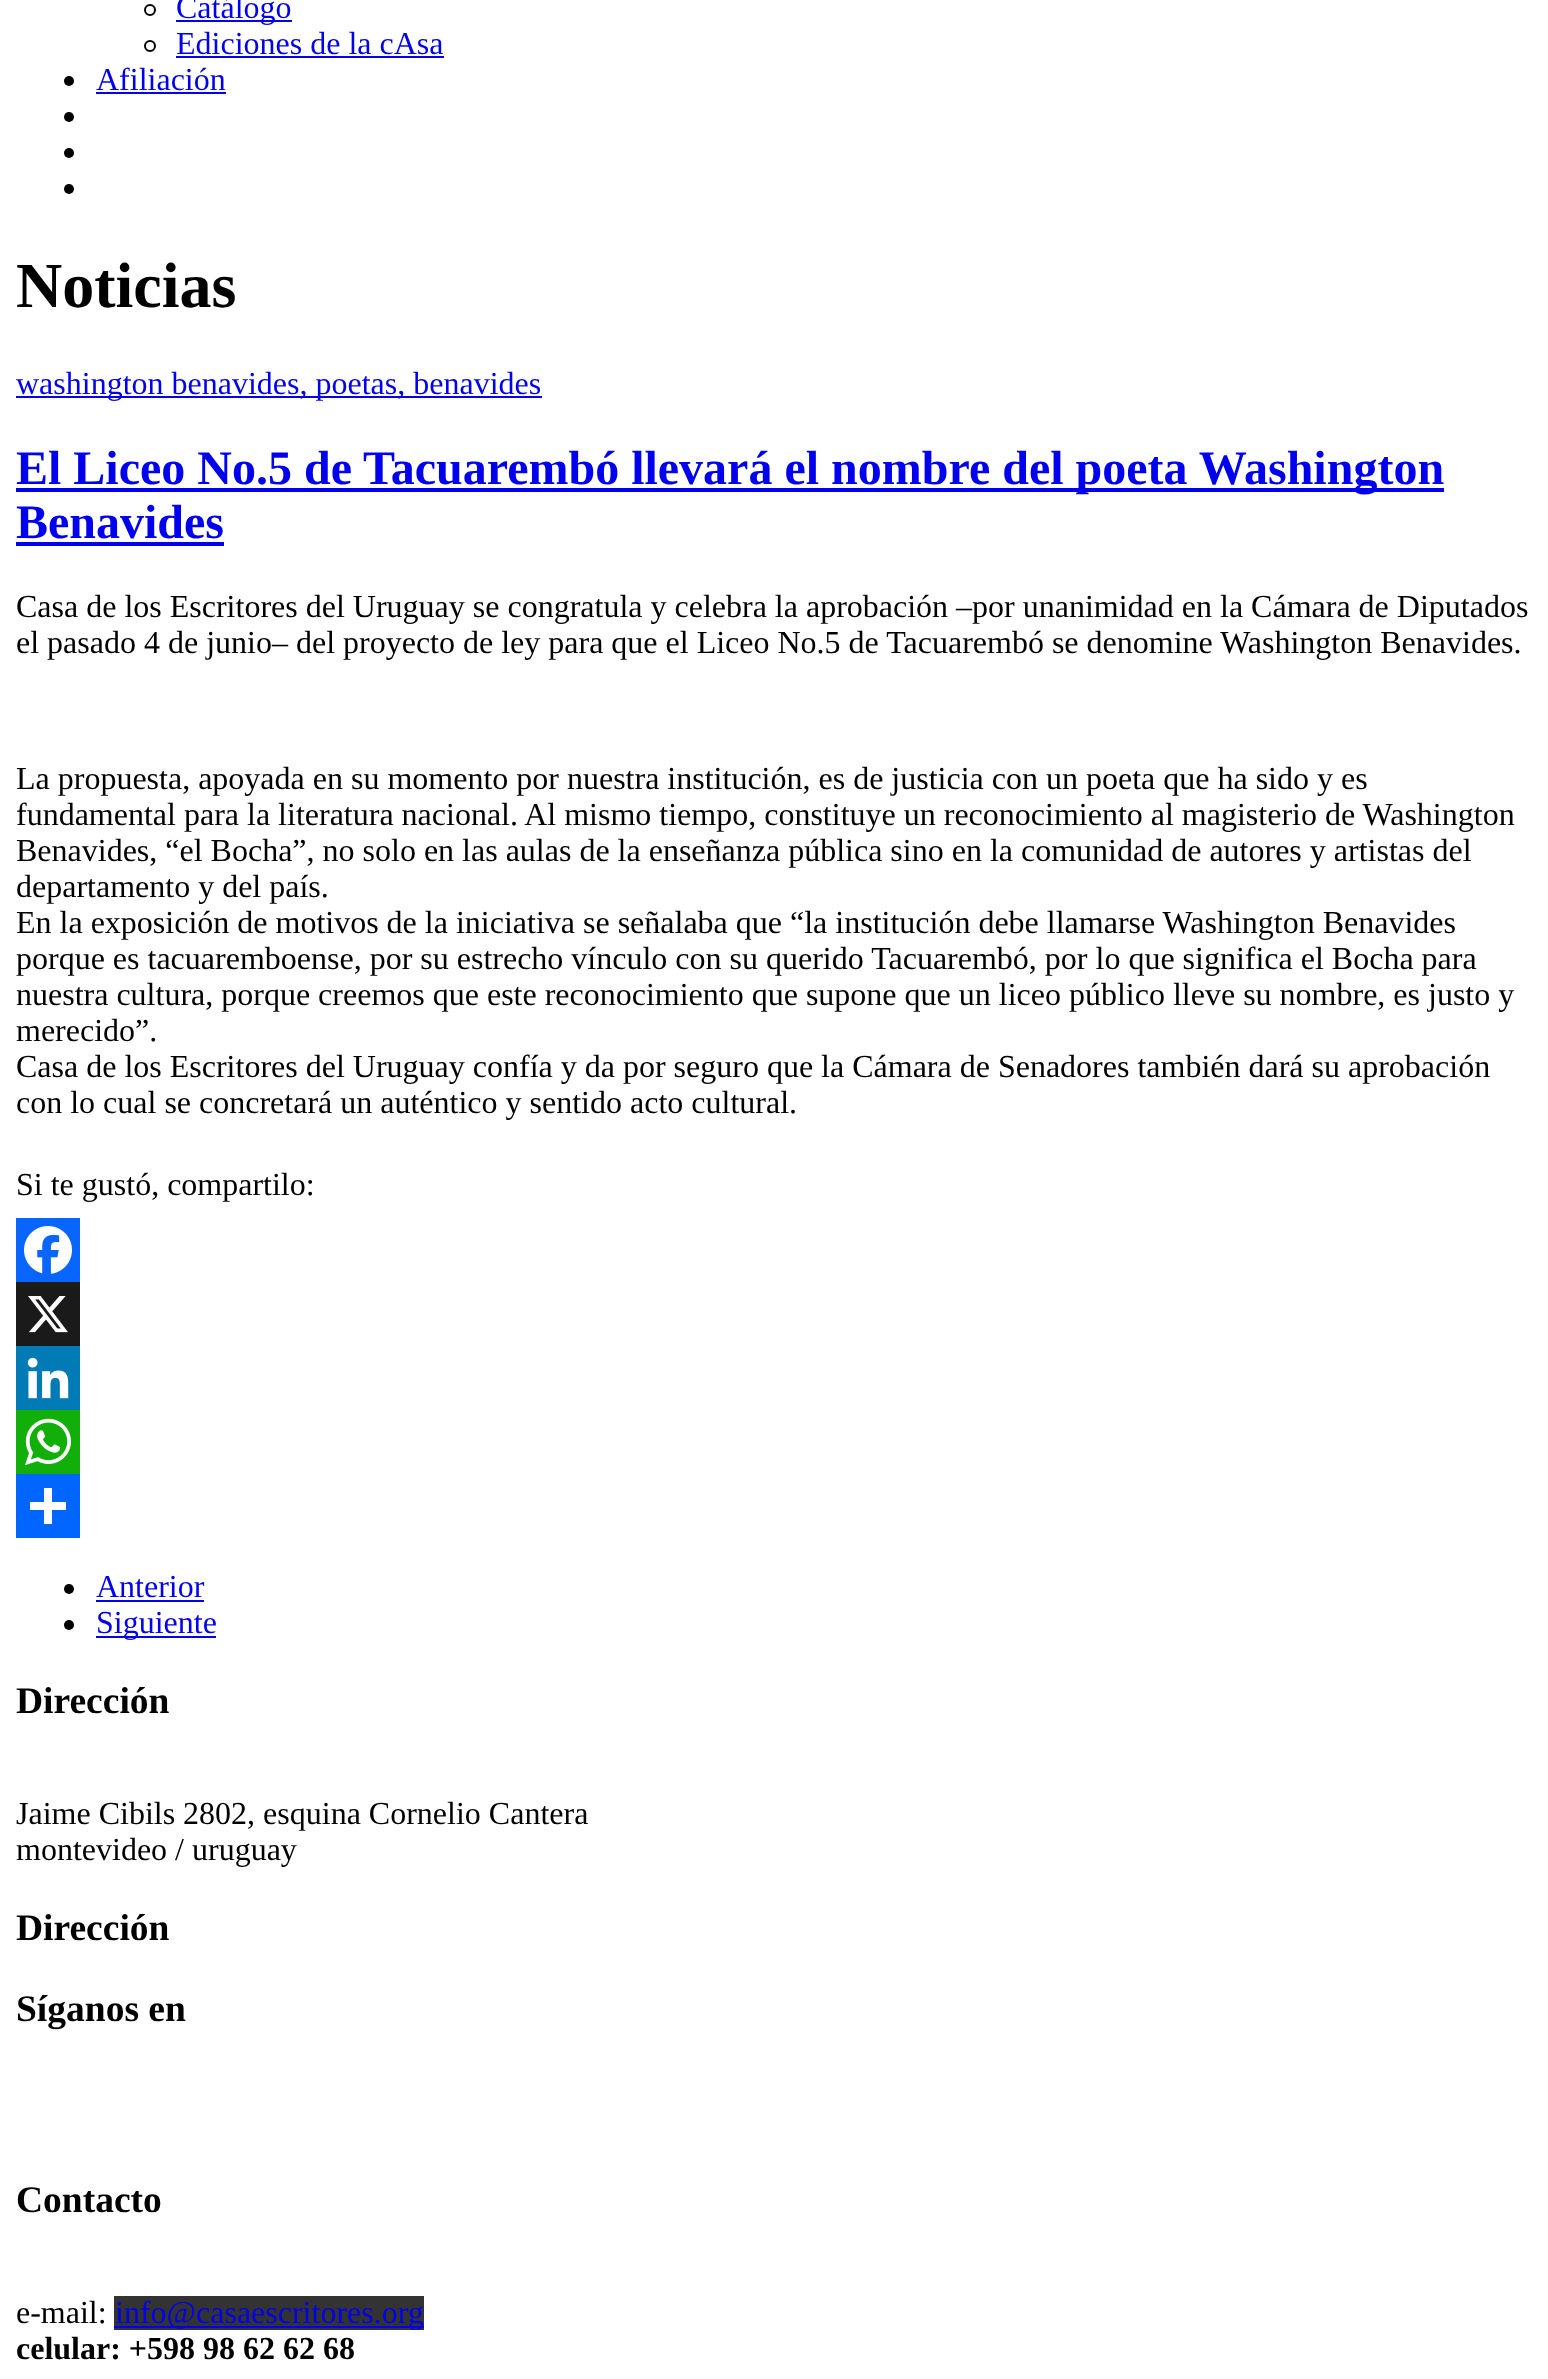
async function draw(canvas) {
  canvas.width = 1548
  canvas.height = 2379
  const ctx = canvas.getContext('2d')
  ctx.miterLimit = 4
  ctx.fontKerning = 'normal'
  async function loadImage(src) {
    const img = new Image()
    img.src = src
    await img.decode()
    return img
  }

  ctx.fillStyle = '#fff'
  ctx.fillRect(0, 0, 1548, 2379)
  ctx.beginPath()
  ctx.arc(150, 10, 5, 0, 2 * Math.PI)
  ctx.strokeStyle = '#000'
  ctx.lineWidth = 2
  ctx.stroke()
  ctx.fillStyle = '#00e'
  ctx.fillRect(176, 20, 116, 2)
  ctx.font = '32px Liberation Serif'
  ctx.fillText('Catálogo', 176, 18)
  ctx.beginPath()
  ctx.arc(150, 46, 5, 0, 2 * Math.PI)
  ctx.stroke()
  ctx.fillText('Ediciones de la cAsa', 176, 54)
  ctx.fillRect(176, 56, 268, 2)
  ctx.fillStyle = '#000'
  ctx.beginPath()
  ctx.arc(69, 81, 5, 0, 2 * Math.PI)
  ctx.fill()
  ctx.fillStyle = '#00e'
  ctx.fillText('Afiliación', 96, 90)
  ctx.fillRect(96, 92, 130, 2)
  ctx.fillStyle = '#000'
  ctx.beginPath()
  ctx.arc(69, 117, 5, 0, 2 * Math.PI)
  ctx.fill()
  ctx.beginPath()
  ctx.arc(69, 153, 5, 0, 2 * Math.PI)
  ctx.fill()
  ctx.beginPath()
  ctx.arc(69, 189, 5, 0, 2 * Math.PI)
  ctx.fill()
  ctx.font = 'bold 64px Liberation Serif'
  ctx.fillText('Noticias', 16, 307)
  ctx.fillStyle = '#00e'
  ctx.fillRect(16, 396, 526, 2)
  ctx.font = '32px Liberation Serif'
  ctx.fillText('washington benavides, poetas, benavides', 16, 394)
  ctx.fillRect(16, 488, 1428, 4)
  ctx.font = 'bold 48px Liberation Serif'
  ctx.fillText('El Liceo No.5 de Tacuarembó llevará el nombre del poeta Washington', 16, 484)
  ctx.fillText('Benavides', 16, 538)
  ctx.fillRect(16, 542, 208, 4)
  ctx.font = '32px Liberation Serif'
  ctx.fillStyle = '#000'
  ctx.fillText('Casa de los Escritores del Uruguay se congratula y celebra la aprobación –por unanimidad en la Cámara de Diputados', 16, 617)
  ctx.fillText('el pasado 4 de junio– del proyecto de ley para que el Liceo No.5 de Tacuarembó se denomine Washington Benavides.', 16, 653)
  ctx.fillText('La propuesta, apoyada en su momento por nuestra institución, es de justicia con un poeta que ha sido y es', 16, 789)
  ctx.fillText('fundamental para la literatura nacional. Al mismo tiempo, constituye un reconocimiento al magisterio de Washington', 16, 825)
  ctx.fillText('Benavides, “el Bocha”, no solo en las aulas de la enseñanza pública sino en la comunidad de autores y artistas del', 16, 861)
  ctx.fillText('departamento y del país.', 16, 897)
  ctx.fillText('En la exposición de motivos de la iniciativa se señalaba que “la institución debe llamarse Washington Benavides', 16, 933)
  ctx.fillText('porque es tacuaremboense, por su estrecho vínculo con su querido Tacuarembó, por lo que significa el Bocha para', 16, 969)
  ctx.fillText('nuestra cultura, porque creemos que este reconocimiento que supone que un liceo público lleve su nombre, es justo y', 16, 1005)
  ctx.fillText('merecido”.', 16, 1041)
  ctx.fillText('Casa de los Escritores del Uruguay confía y da por seguro que la Cámara de Senadores también dará su aprobación', 16, 1077)
  ctx.fillText('con lo cual se concretará un auténtico y sentido acto cultural.', 16, 1113)
  ctx.fillText('Si te gustó, compartilo:', 16, 1195)
  ctx.fillStyle = '#0866ff'
  ctx.fillRect(16, 1218, 64, 64)
  ctx.drawImage(await loadImage('image0.png'), 24, 1226, 48, 48)
  ctx.fillStyle = '#1a1a1a'
  ctx.fillRect(16, 1282, 64, 64)
  ctx.drawImage(await loadImage('image1.png'), 28, 1296, 40, 37)
  ctx.fillStyle = '#007bb5'
  ctx.fillRect(16, 1346, 64, 64)
  ctx.drawImage(await loadImage('image2.png'), 27, 1357, 42, 42)
  ctx.fillStyle = '#12af0a'
  ctx.fillRect(16, 1410, 64, 64)
  ctx.drawImage(await loadImage('image3.png'), 25, 1418, 46, 48)
  ctx.fillStyle = '#0166ff'
  ctx.fillRect(16, 1474, 64, 64)
  ctx.fillStyle = '#fff'
  ctx.fillRect(44, 1488, 8, 36)
  ctx.fillRect(30, 1502, 36, 8)
  ctx.fillStyle = '#000'
  ctx.beginPath()
  ctx.arc(69, 1589, 5, 0, 2 * Math.PI)
  ctx.fill()
  ctx.fillStyle = '#00e'
  ctx.fillText('Anterior', 96, 1597)
  ctx.fillRect(96, 1600, 108, 2)
  ctx.fillStyle = '#000'
  ctx.beginPath()
  ctx.arc(69, 1625, 5, 0, 2 * Math.PI)
  ctx.fill()
  ctx.fillStyle = '#00e'
  ctx.fillRect(96, 1636, 120, 2)
  ctx.fillText('Siguiente', 96, 1633)
  ctx.font = 'bold 37.5px Liberation Serif'
  ctx.fillStyle = '#000'
  ctx.fillText('Dirección', 16, 1713)
  ctx.font = '32px Liberation Serif'
  ctx.fillText('Jaime Cibils 2802, esquina Cornelio Cantera', 16, 1824)
  ctx.fillText('montevideo / uruguay', 16, 1860)
  ctx.font = 'bold 37.5px Liberation Serif'
  ctx.fillText('Dirección', 16, 1940)
  ctx.fillText('Síganos en', 16, 2021)
  ctx.fillText('Contacto', 16, 2212)
  ctx.font = '32px Liberation Serif'
  ctx.fillText('e-mail:', 16, 2323)
  ctx.fillStyle = '#333'
  ctx.fillRect(114, 2296, 310, 34)
  ctx.fillStyle = '#00e'
  ctx.fillRect(114, 2326, 310, 2)
  ctx.fillText('info@casaescritores.org', 115, 2323)
  ctx.font = 'bold 32px Liberation Serif'
  ctx.fillStyle = '#000'
  ctx.fillText('celular: +598 98 62 62 68', 16, 2359)
}

draw(document.querySelector('canvas'))
